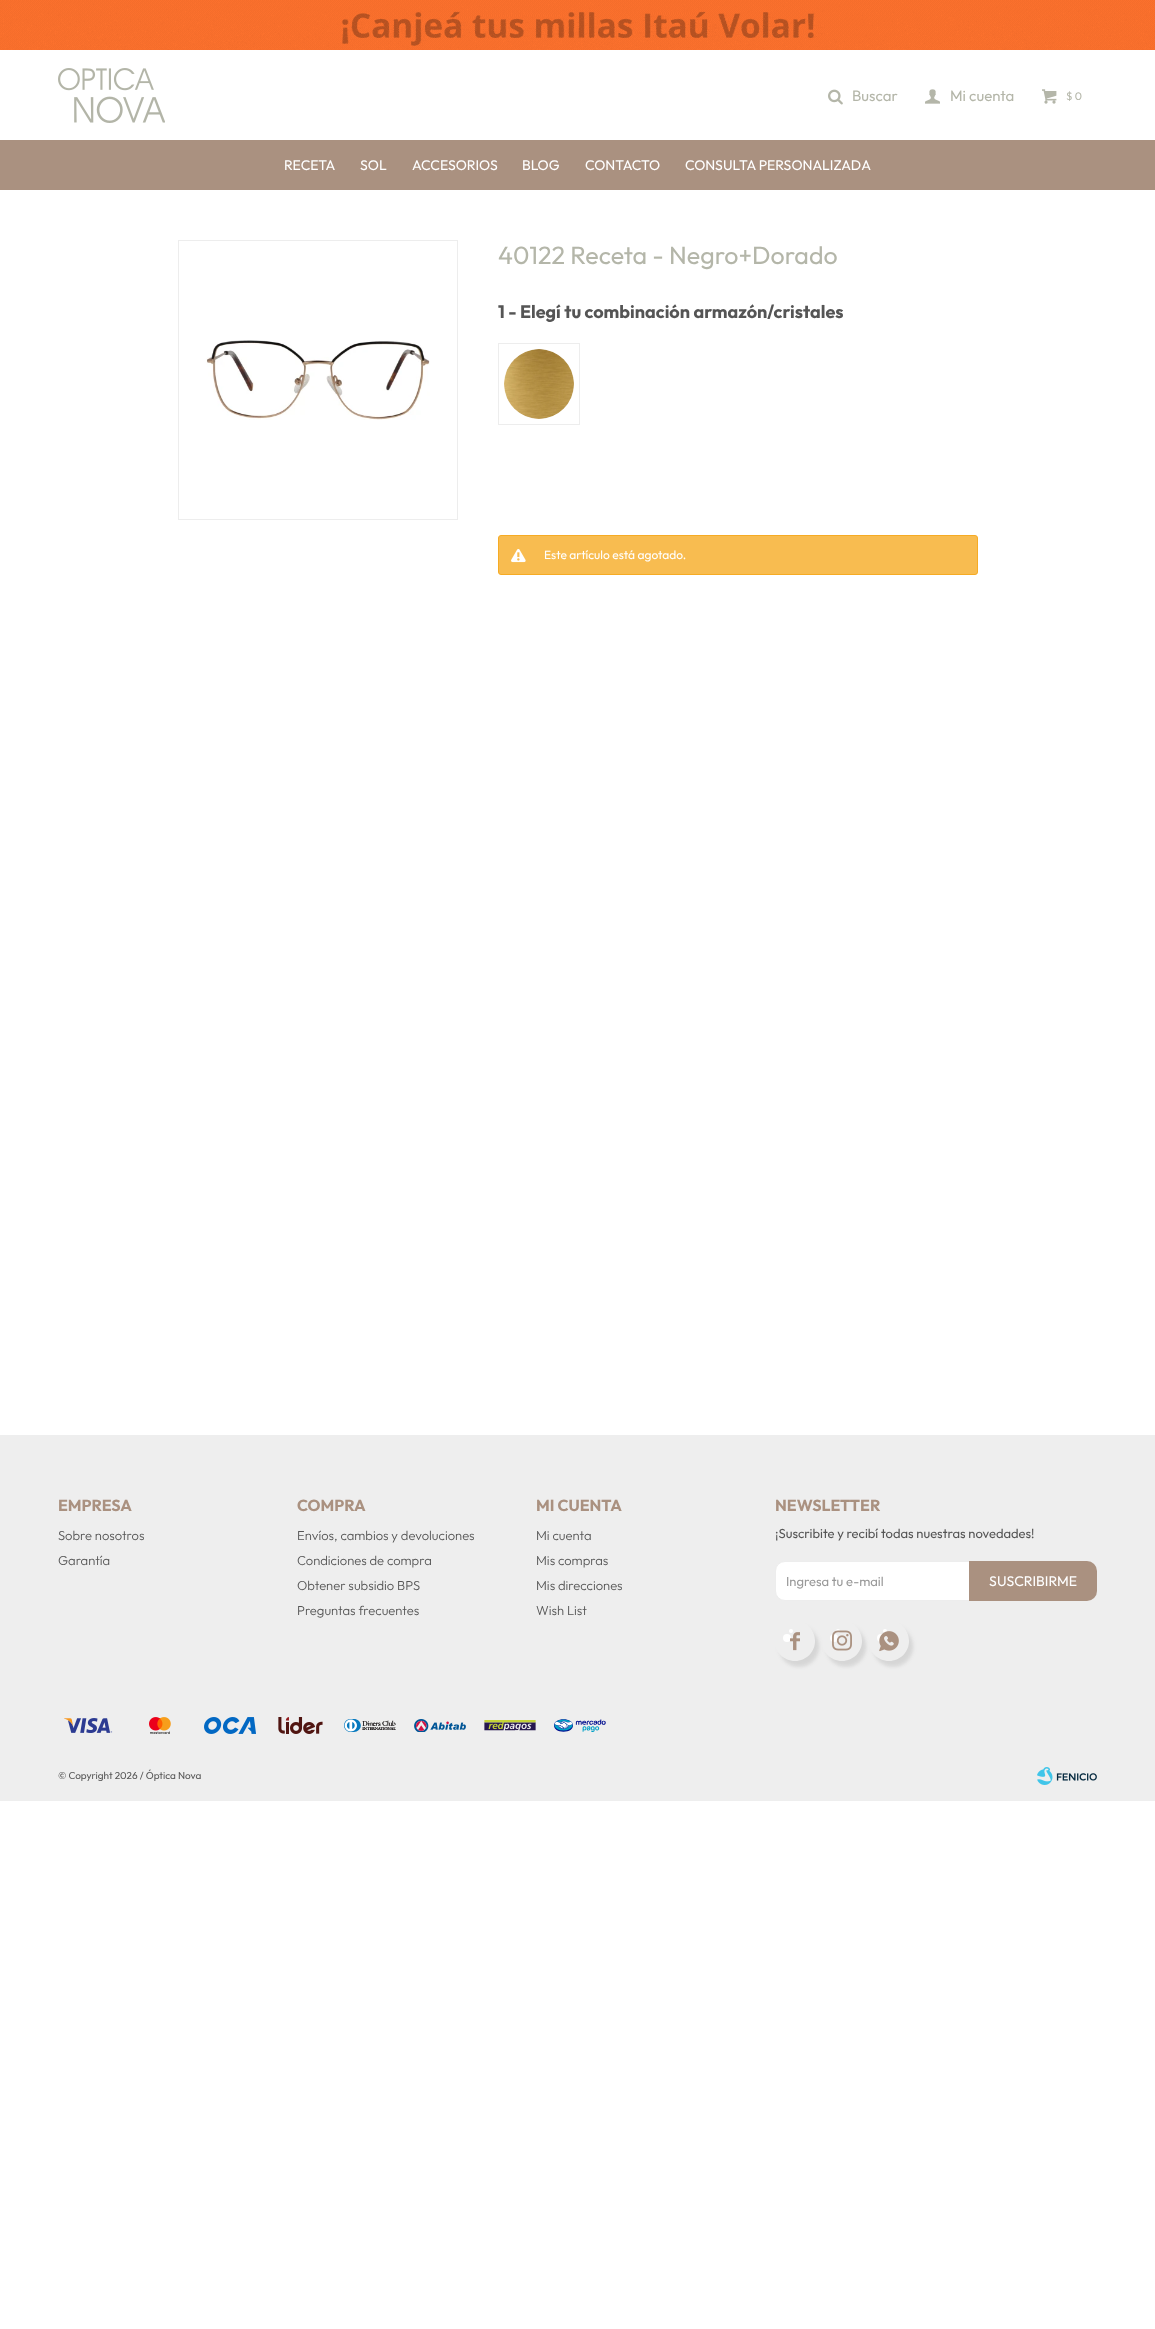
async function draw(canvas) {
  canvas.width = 1155
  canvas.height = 2329
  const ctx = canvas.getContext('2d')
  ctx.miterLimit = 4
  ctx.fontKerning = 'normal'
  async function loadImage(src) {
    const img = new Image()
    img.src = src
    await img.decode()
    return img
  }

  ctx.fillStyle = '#fff'
  ctx.fillRect(0, 0, 1155, 2329)
  ctx.drawImage(await loadImage('image0.png'), 0, 0, 1155, 50)
  ctx.drawImage(await loadImage('image1.png'), 58, 68, 107, 55)
  ctx.drawImage(await loadImage('image2.png'), 828, 89, 15, 16)
  ctx.font = '15px Outfit'
  ctx.fillStyle = '#b4b6a9'
  ctx.fillText('Buscar', 852, 101)
  ctx.drawImage(await loadImage('image3.png'), 925, 89, 15, 15)
  ctx.fillText('Mi cuenta', 950, 101)
  ctx.drawImage(await loadImage('image4.png'), 1042, 89, 15, 15)
  ctx.font = '11px Outfit'
  ctx.fillText('$ 0', 1066, 100)
  ctx.fillStyle = '#aa9180'
  ctx.fillRect(0, 140, 1155, 50)
  ctx.font = '14px Outfit'
  ctx.fillStyle = '#fff'
  ctx.fillText('RECETA', 284, 170)
  ctx.fillText('SOL', 360, 170)
  ctx.fillText('ACCESORIOS', 412, 170)
  ctx.fillText('BLOG', 522, 170)
  ctx.fillText('CONTACTO', 585, 170)
  ctx.fillText('CONSULTA PERSONALIZADA', 685, 170)
  ctx.strokeStyle = '#ededed'
  ctx.strokeRect(178.5, 240.5, 279, 279)
  ctx.drawImage(await loadImage('image5.png'), 206, 340, 224, 80)
  ctx.font = '25px Outfit'
  ctx.fillStyle = '#b4b6a9'
  ctx.fillText('40122 Receta - Negro+Dorado', 498, 264)
  ctx.font = 'bold 18px Outfit'
  ctx.fillStyle = '#555'
  ctx.fillText('1 - Elegí tu combinación armazón/cristales', 498, 318)
  ctx.strokeRect(498.5, 343.5, 81, 81)
  ctx.drawImage(await loadImage('image6.png'), 504, 349, 70, 70)
  ctx.fillStyle = '#f8bc50'
  ctx.beginPath()
  ctx.roundRect(498.5, 535.5, 479, 39, 2.5)
  ctx.fill()
  ctx.strokeStyle = '#f6ab24'
  ctx.stroke()
  ctx.drawImage(await loadImage('image7.png'), 511, 549, 15, 14)
  ctx.font = '12px Outfit'
  ctx.fillStyle = '#fff'
  ctx.fillText('Este artículo está agotado.', 544, 559)
  ctx.fillStyle = '#eee'
  ctx.fillRect(0, 1435, 1155, 366)
  ctx.font = 'bold 16px Outfit'
  ctx.fillStyle = '#aa9180'
  ctx.fillText('EMPRESA', 58, 1511)
  ctx.font = '300 13px Outfit'
  ctx.fillStyle = '#555'
  ctx.fillText('Sobre nosotros', 58, 1540)
  ctx.fillText('Garantía', 58, 1565)
  ctx.font = 'bold 16px Outfit'
  ctx.fillStyle = '#aa9180'
  ctx.fillText('COMPRA', 297, 1511)
  ctx.font = '300 13px Outfit'
  ctx.fillStyle = '#555'
  ctx.fillText('Envíos, cambios y devoluciones', 297, 1540)
  ctx.fillText('Condiciones de compra', 297, 1565)
  ctx.fillText('Obtener subsidio BPS', 297, 1590)
  ctx.fillText('Preguntas frecuentes', 297, 1615)
  ctx.font = 'bold 16px Outfit'
  ctx.fillStyle = '#aa9180'
  ctx.fillText('MI CUENTA', 536, 1511)
  ctx.font = '300 13px Outfit'
  ctx.fillStyle = '#555'
  ctx.fillText('Mi cuenta', 536, 1540)
  ctx.fillText('Mis compras', 536, 1565)
  ctx.fillText('Mis direcciones', 536, 1590)
  ctx.fillText('Wish List', 536, 1615)
  ctx.font = 'bold 16px Outfit'
  ctx.fillStyle = '#aa9180'
  ctx.fillText('NEWSLETTER', 775, 1511)
  ctx.font = '13px Outfit'
  ctx.fillStyle = '#555'
  ctx.fillText('¡Suscribite y recibí todas nuestras novedades!', 775, 1538)
  ctx.fillStyle = '#fff'
  ctx.beginPath()
  ctx.roundRect(775.5, 1561.5, 321, 39, 9.5)
  ctx.fill()
  ctx.strokeStyle = '#ededed'
  ctx.stroke()
  ctx.fillStyle = '#999'
  ctx.fillText('Ingresa tu e-mail', 786, 1586)
  ctx.fillStyle = '#aa9180'
  ctx.beginPath()
  ctx.roundRect(969, 1561, 128, 40, [0, 10, 10, 0])
  ctx.fill()
  ctx.font = '14px Outfit'
  ctx.fillStyle = '#fff'
  ctx.fillText('SUSCRIBIRME', 989, 1586)
  ctx.save()
  ctx.beginPath()
  ctx.moveTo(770, 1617)
  ctx.lineTo(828, 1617)
  ctx.lineTo(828, 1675)
  ctx.lineTo(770, 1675)
  ctx.closePath()
  ctx.moveTo(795, 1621)
  ctx.bezierCurveTo(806, 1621, 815, 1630, 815, 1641)
  ctx.bezierCurveTo(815, 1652, 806, 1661, 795, 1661)
  ctx.bezierCurveTo(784, 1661, 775, 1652, 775, 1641)
  ctx.bezierCurveTo(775, 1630, 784, 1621, 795, 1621)
  ctx.closePath()
  ctx.clip('evenodd')
  ctx.fillStyle = '#0000000d'
  ctx.filter = 'blur(2.5px)'
  ctx.beginPath()
  ctx.roundRect(779, 1626, 40, 40, 20)
  ctx.fill()
  ctx.filter = 'none'
  ctx.restore()
  ctx.save()
  ctx.beginPath()
  ctx.moveTo(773, 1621)
  ctx.lineTo(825, 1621)
  ctx.lineTo(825, 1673)
  ctx.lineTo(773, 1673)
  ctx.closePath()
  ctx.moveTo(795, 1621)
  ctx.bezierCurveTo(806, 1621, 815, 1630, 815, 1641)
  ctx.bezierCurveTo(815, 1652, 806, 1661, 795, 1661)
  ctx.bezierCurveTo(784, 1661, 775, 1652, 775, 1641)
  ctx.bezierCurveTo(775, 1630, 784, 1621, 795, 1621)
  ctx.closePath()
  ctx.clip('evenodd')
  ctx.fillStyle = '#0000000d'
  ctx.filter = 'blur(1.5px)'
  ctx.beginPath()
  ctx.roundRect(779, 1627, 40, 40, 20)
  ctx.fill()
  ctx.filter = 'none'
  ctx.restore()
  ctx.beginPath()
  ctx.arc(791, 1631, 2, 0, 2 * Math.PI)
  ctx.fill()
  ctx.beginPath()
  ctx.arc(787, 1638, 4, 0, 2 * Math.PI)
  ctx.fill()
  ctx.drawImage(await loadImage('image8.png'), 790, 1632, 10, 19)
  ctx.save()
  ctx.beginPath()
  ctx.moveTo(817, 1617)
  ctx.lineTo(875, 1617)
  ctx.lineTo(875, 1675)
  ctx.lineTo(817, 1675)
  ctx.closePath()
  ctx.moveTo(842, 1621)
  ctx.bezierCurveTo(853, 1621, 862, 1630, 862, 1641)
  ctx.bezierCurveTo(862, 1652, 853, 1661, 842, 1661)
  ctx.bezierCurveTo(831, 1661, 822, 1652, 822, 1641)
  ctx.bezierCurveTo(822, 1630, 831, 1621, 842, 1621)
  ctx.closePath()
  ctx.clip('evenodd')
  ctx.fillStyle = '#0000000d'
  ctx.filter = 'blur(2.5px)'
  ctx.beginPath()
  ctx.roundRect(826, 1626, 40, 40, 20)
  ctx.fill()
  ctx.filter = 'none'
  ctx.restore()
  ctx.save()
  ctx.beginPath()
  ctx.moveTo(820, 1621)
  ctx.lineTo(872, 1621)
  ctx.lineTo(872, 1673)
  ctx.lineTo(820, 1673)
  ctx.closePath()
  ctx.moveTo(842, 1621)
  ctx.bezierCurveTo(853, 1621, 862, 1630, 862, 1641)
  ctx.bezierCurveTo(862, 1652, 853, 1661, 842, 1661)
  ctx.bezierCurveTo(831, 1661, 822, 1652, 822, 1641)
  ctx.bezierCurveTo(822, 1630, 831, 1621, 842, 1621)
  ctx.closePath()
  ctx.clip('evenodd')
  ctx.fillStyle = '#0000000d'
  ctx.filter = 'blur(1.5px)'
  ctx.beginPath()
  ctx.roundRect(826, 1627, 40, 40, 20)
  ctx.fill()
  ctx.filter = 'none'
  ctx.restore()
  ctx.beginPath()
  ctx.arc(838, 1631, 2, 0, 2 * Math.PI)
  ctx.fill()
  ctx.beginPath()
  ctx.arc(834, 1638, 4, 0, 2 * Math.PI)
  ctx.fill()
  ctx.drawImage(await loadImage('image9.png'), 832, 1630, 20, 21)
  ctx.save()
  ctx.beginPath()
  ctx.moveTo(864, 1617)
  ctx.lineTo(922, 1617)
  ctx.lineTo(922, 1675)
  ctx.lineTo(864, 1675)
  ctx.closePath()
  ctx.moveTo(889, 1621)
  ctx.bezierCurveTo(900, 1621, 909, 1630, 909, 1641)
  ctx.bezierCurveTo(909, 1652, 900, 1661, 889, 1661)
  ctx.bezierCurveTo(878, 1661, 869, 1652, 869, 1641)
  ctx.bezierCurveTo(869, 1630, 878, 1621, 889, 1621)
  ctx.closePath()
  ctx.clip('evenodd')
  ctx.fillStyle = '#0000000d'
  ctx.filter = 'blur(2.5px)'
  ctx.beginPath()
  ctx.roundRect(873, 1626, 40, 40, 20)
  ctx.fill()
  ctx.filter = 'none'
  ctx.restore()
  ctx.save()
  ctx.beginPath()
  ctx.moveTo(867, 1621)
  ctx.lineTo(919, 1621)
  ctx.lineTo(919, 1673)
  ctx.lineTo(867, 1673)
  ctx.closePath()
  ctx.moveTo(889, 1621)
  ctx.bezierCurveTo(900, 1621, 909, 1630, 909, 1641)
  ctx.bezierCurveTo(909, 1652, 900, 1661, 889, 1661)
  ctx.bezierCurveTo(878, 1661, 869, 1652, 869, 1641)
  ctx.bezierCurveTo(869, 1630, 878, 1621, 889, 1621)
  ctx.closePath()
  ctx.clip('evenodd')
  ctx.fillStyle = '#0000000d'
  ctx.filter = 'blur(1.5px)'
  ctx.beginPath()
  ctx.roundRect(873, 1627, 40, 40, 20)
  ctx.fill()
  ctx.filter = 'none'
  ctx.restore()
  ctx.beginPath()
  ctx.arc(885, 1631, 2, 0, 2 * Math.PI)
  ctx.fill()
  ctx.beginPath()
  ctx.arc(881, 1638, 4, 0, 2 * Math.PI)
  ctx.fill()
  ctx.drawImage(await loadImage('image10.png'), 879, 1631, 20, 21)
  ctx.drawImage(await loadImage('image11.png'), 64, 1718, 49, 15)
  ctx.drawImage(await loadImage('image12.png'), 149, 1717, 22, 17)
  ctx.drawImage(await loadImage('image13.png'), 204, 1717, 52, 17)
  ctx.drawImage(await loadImage('image14.png'), 278, 1717, 45, 17)
  ctx.drawImage(await loadImage('image15.png'), 344, 1719, 52, 13)
  ctx.drawImage(await loadImage('image16.png'), 414, 1719, 52, 13)
  ctx.drawImage(await loadImage('image17.png'), 484, 1720, 52, 11)
  ctx.drawImage(await loadImage('image18.png'), 554, 1719, 52, 13)
  ctx.font = '10px Outfit'
  ctx.fillStyle = '#555'
  ctx.fillText('© Copyright 2026 / Óptica Nova', 58, 1779)
  ctx.drawImage(await loadImage('image19.png'), 1037, 1767, 60, 18)
}

draw(document.querySelector('canvas'))
